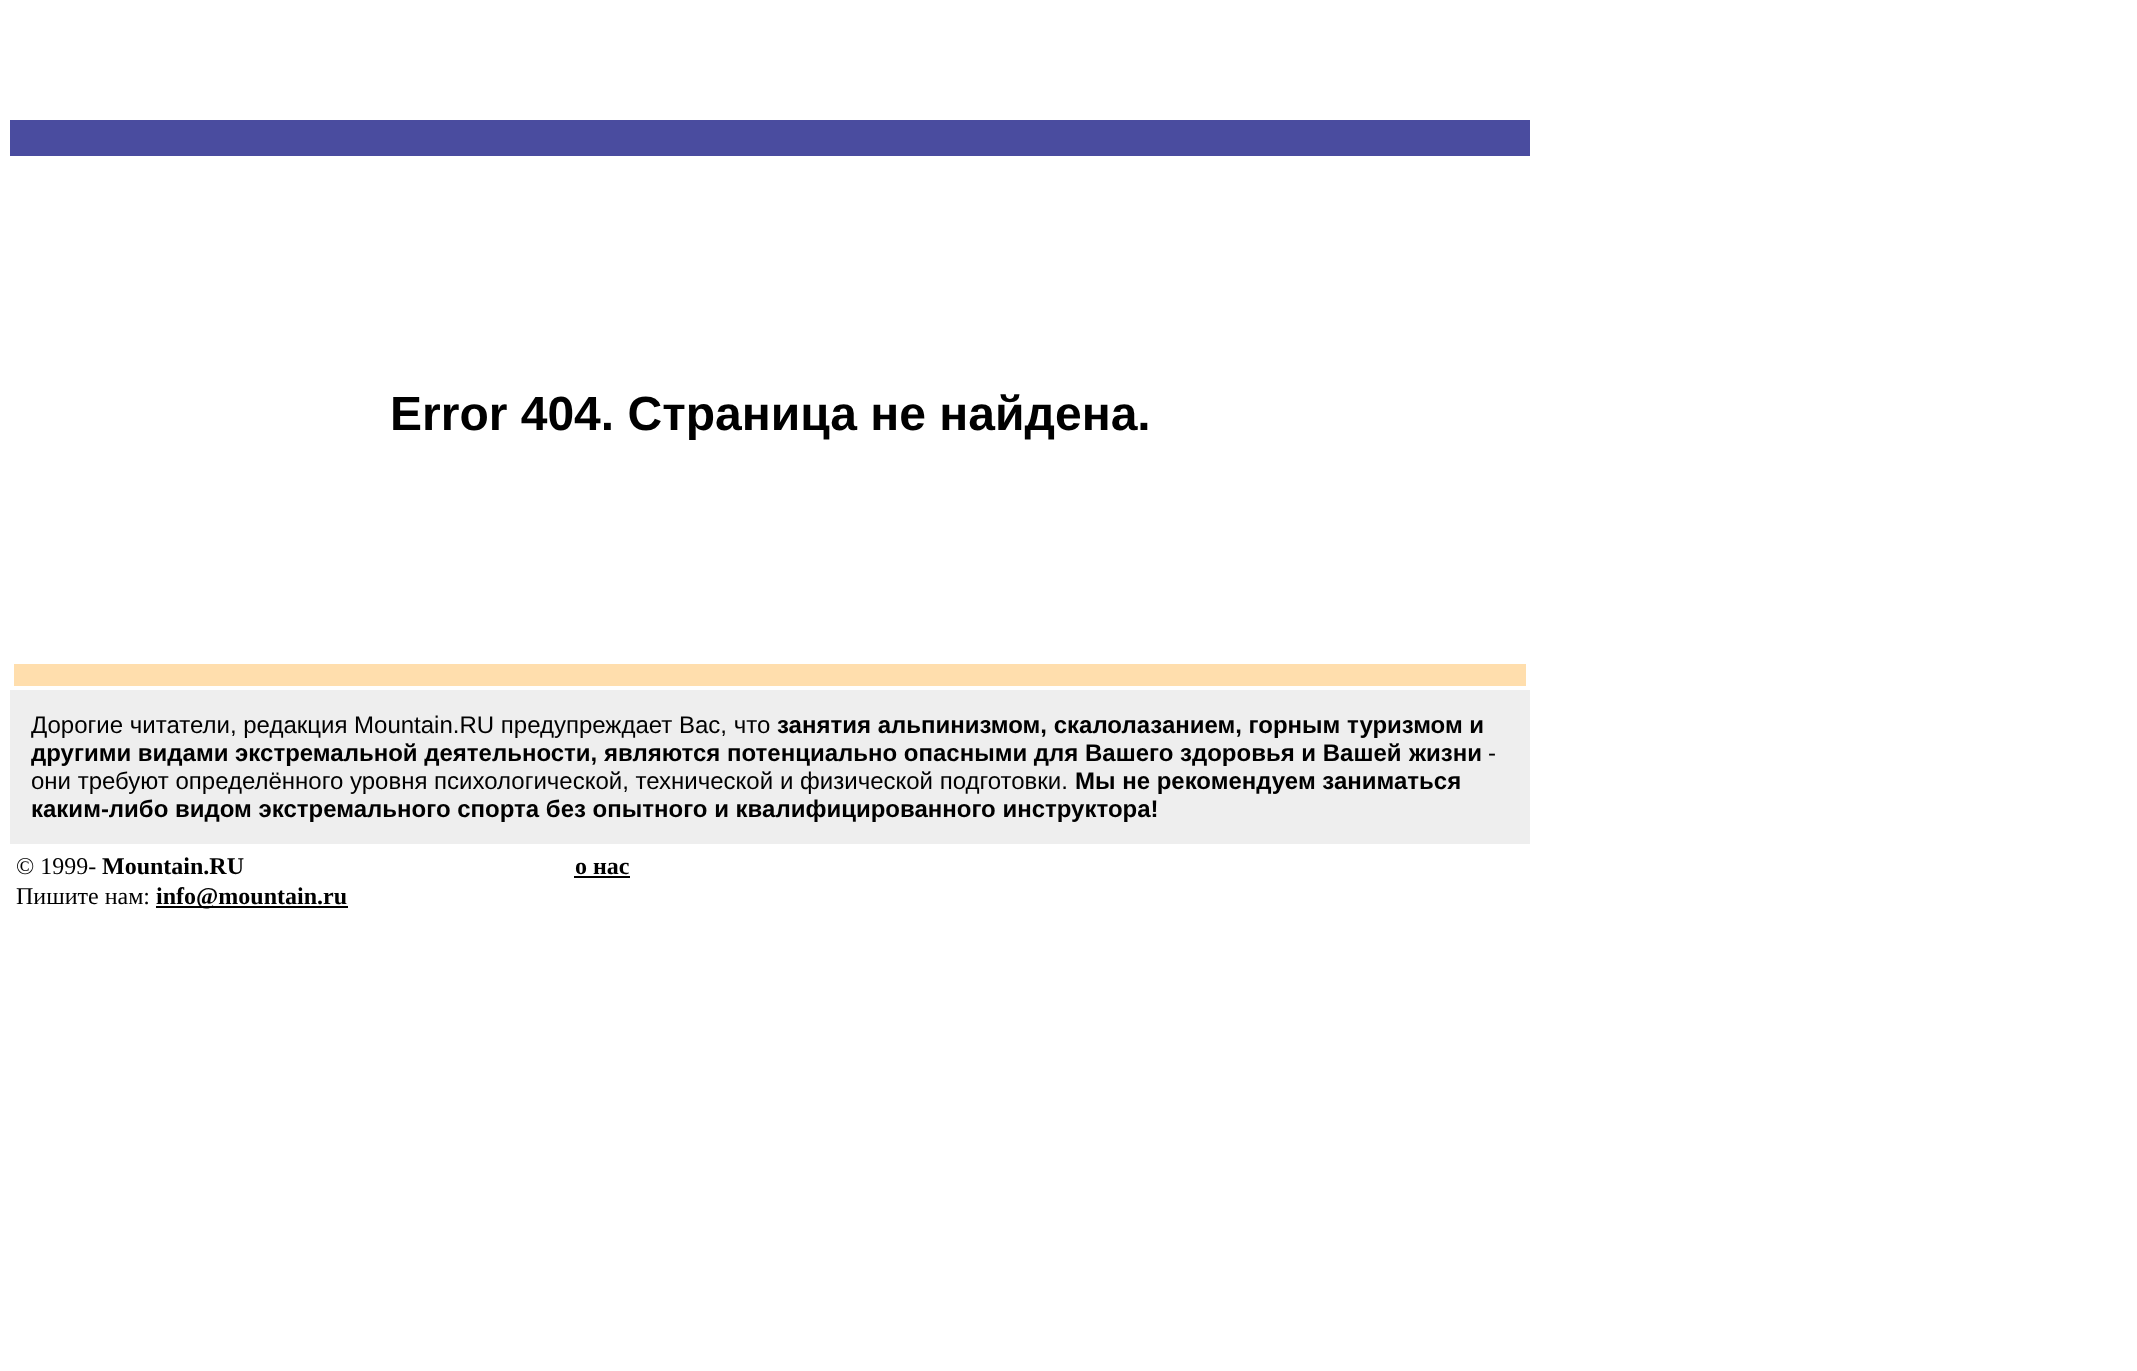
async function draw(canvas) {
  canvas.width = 2137
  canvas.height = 1371
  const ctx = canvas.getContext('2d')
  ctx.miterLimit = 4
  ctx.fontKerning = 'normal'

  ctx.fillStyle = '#fff'
  ctx.fillRect(0, 0, 2137, 1371)
  ctx.fillStyle = '#4a4c9f'
  ctx.fillRect(10, 120, 1520, 36)
  ctx.font = 'bold 48px Liberation Sans'
  ctx.fillStyle = '#000'
  ctx.fillText('Error 404. Страница не найдена.', 390, 430)
  ctx.fillStyle = '#ffdead'
  ctx.fillRect(14, 664, 1512, 22)
  ctx.fillStyle = '#eee'
  ctx.fillRect(10, 690, 1520, 154)
  ctx.font = '24px Liberation Sans'
  ctx.fillStyle = '#000'
  ctx.fillText('Дорогие читатели, редакция Mountain.RU предупреждает Вас, что', 31, 733)
  ctx.font = 'bold 24px Liberation Sans'
  ctx.fillText('занятия альпинизмом, скалолазанием, горным туризмом и', 777, 733)
  ctx.fillText('другими видами экстремальной деятельности, являются потенциально опасными для Вашего здоровья и Вашей', 31, 761)
  ctx.fillText('жизни', 1409, 761)
  ctx.font = '24px Liberation Sans'
  ctx.fillText('-', 1488, 761)
  ctx.fillText('они требуют определённого уровня психологической, технической', 31, 789)
  ctx.fillText('и физической подготовки.', 780, 789)
  ctx.font = 'bold 24px Liberation Sans'
  ctx.fillText('Мы не рекомендуем заниматься', 1075, 789)
  ctx.fillText('каким-либо видом экстремального спорта без опытного и квалифицированного инструктора!', 31, 817)
  ctx.font = '24px Liberation Serif'
  ctx.fillText('© 1999-', 16, 874)
  ctx.font = 'bold 24px Liberation Serif'
  ctx.fillText('Mountain.RU', 102, 874)
  ctx.font = '24px Liberation Serif'
  ctx.fillText('Пишите нам:', 16, 904)
  ctx.fillRect(156, 906, 192, 2)
  ctx.font = 'bold 24px Liberation Serif'
  ctx.fillText('info@mountain.ru', 156, 904)
  ctx.fillText('о нас', 575, 874)
  ctx.fillRect(574, 876, 56, 2)
}

draw(document.querySelector('canvas'))
